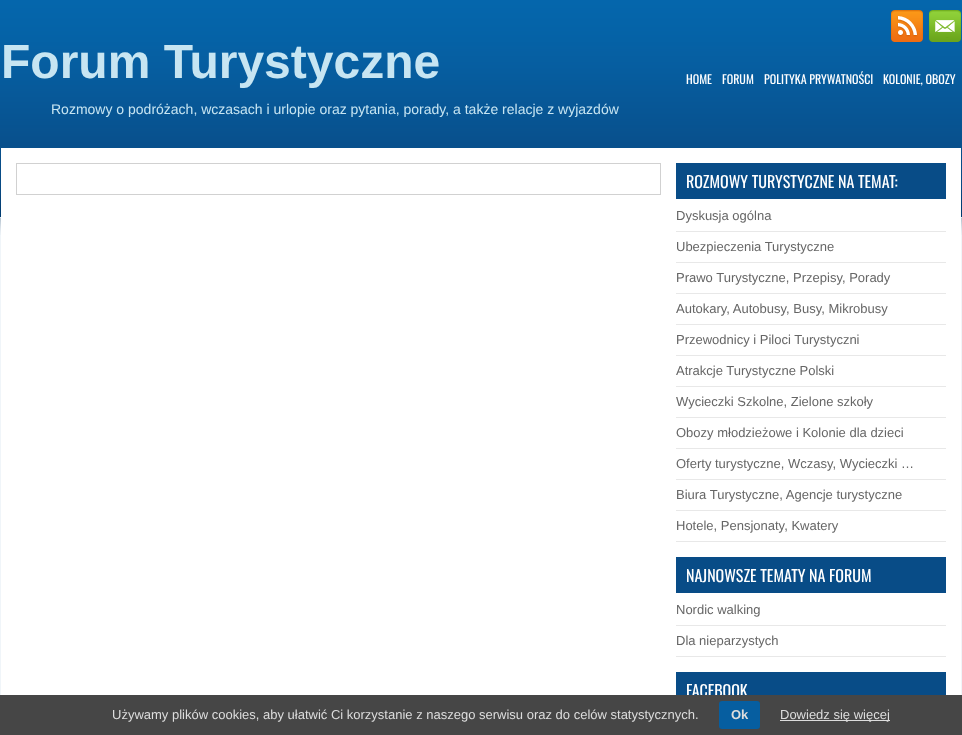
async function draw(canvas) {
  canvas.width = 962
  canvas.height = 735
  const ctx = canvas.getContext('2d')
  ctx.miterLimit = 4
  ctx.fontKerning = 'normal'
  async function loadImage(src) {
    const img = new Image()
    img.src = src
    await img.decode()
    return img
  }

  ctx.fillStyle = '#f0f5f9'
  ctx.fillRect(0, 0, 962, 735)
  ctx.drawImage(await loadImage('image0.png'), 0, 0, 962, 235)
  ctx.drawImage(await loadImage('image1.png'), 891, 10, 32, 32)
  ctx.drawImage(await loadImage('image2.png'), 929, 10, 32, 32)
  ctx.font = 'bold 48px Liberation Sans'
  ctx.fillStyle = '#c7e5f2'
  ctx.fillText('Forum Turystyczne', 1, 78)
  ctx.font = '14px Liberation Sans'
  ctx.fillText('Rozmowy o podróżach, wczasach i urlopie oraz pytania, porady, a także relacje z wyjazdów', 51, 114)
  ctx.font = '12px Oswald'
  ctx.fillStyle = '#fff'
  ctx.fillText('HOME', 686, 84)
  ctx.fillText('FORUM', 722, 84)
  ctx.fillText('POLITYKA PRYWATNOŚCI', 764, 84)
  ctx.fillText('KOLONIE, OBOZY', 883, 84)
  ctx.fillRect(1, 148, 960, 547)
  ctx.strokeStyle = '#d1d1d1'
  ctx.strokeRect(16.5, 163.5, 644, 31)
  ctx.fillStyle = '#084c87'
  ctx.fillRect(676, 163, 270, 36)
  ctx.font = '16px Oswald'
  ctx.fillStyle = '#fff'
  ctx.fillText('ROZMOWY TURYSTYCZNE NA TEMAT:', 686, 188)
  ctx.fillStyle = '#e8e8e8'
  ctx.fillRect(676, 231, 270, 1)
  ctx.font = '13px Liberation Sans'
  ctx.fillStyle = '#666'
  ctx.fillText('Dyskusja ogólna', 676, 220)
  ctx.fillStyle = '#e8e8e8'
  ctx.fillRect(676, 262, 270, 1)
  ctx.fillStyle = '#666'
  ctx.fillText('Ubezpieczenia Turystyczne', 676, 251)
  ctx.fillStyle = '#e8e8e8'
  ctx.fillRect(676, 293, 270, 1)
  ctx.fillStyle = '#666'
  ctx.fillText('Prawo Turystyczne, Przepisy, Porady', 676, 282)
  ctx.fillStyle = '#e8e8e8'
  ctx.fillRect(676, 324, 270, 1)
  ctx.fillStyle = '#666'
  ctx.fillText('Autokary, Autobusy, Busy, Mikrobusy', 676, 313)
  ctx.fillStyle = '#e8e8e8'
  ctx.fillRect(676, 355, 270, 1)
  ctx.fillStyle = '#666'
  ctx.fillText('Przewodnicy i Piloci Turystyczni', 676, 344)
  ctx.fillStyle = '#e8e8e8'
  ctx.fillRect(676, 386, 270, 1)
  ctx.fillStyle = '#666'
  ctx.fillText('Atrakcje Turystyczne Polski', 676, 375)
  ctx.fillStyle = '#e8e8e8'
  ctx.fillRect(676, 417, 270, 1)
  ctx.fillStyle = '#666'
  ctx.fillText('Wycieczki Szkolne, Zielone szkoły', 676, 406)
  ctx.fillStyle = '#e8e8e8'
  ctx.fillRect(676, 448, 270, 1)
  ctx.fillStyle = '#666'
  ctx.fillText('Obozy młodzieżowe i Kolonie dla dzieci', 676, 437)
  ctx.fillStyle = '#e8e8e8'
  ctx.fillRect(676, 479, 270, 1)
  ctx.fillStyle = '#666'
  ctx.fillText('Oferty turystyczne, Wczasy, Wycieczki …', 676, 468)
  ctx.fillStyle = '#e8e8e8'
  ctx.fillRect(676, 510, 270, 1)
  ctx.fillStyle = '#666'
  ctx.fillText('Biura Turystyczne, Agencje turystyczne', 676, 499)
  ctx.fillStyle = '#e8e8e8'
  ctx.fillRect(676, 541, 270, 1)
  ctx.fillStyle = '#666'
  ctx.fillText('Hotele, Pensjonaty, Kwatery', 676, 530)
  ctx.fillStyle = '#084c87'
  ctx.fillRect(676, 557, 270, 36)
  ctx.font = '16px Oswald'
  ctx.fillStyle = '#fff'
  ctx.fillText('NAJNOWSZE TEMATY NA FORUM', 686, 582)
  ctx.fillStyle = '#e8e8e8'
  ctx.fillRect(676, 625, 270, 1)
  ctx.font = '13px Liberation Sans'
  ctx.fillStyle = '#666'
  ctx.fillText('Nordic walking', 676, 614)
  ctx.fillStyle = '#e8e8e8'
  ctx.fillRect(676, 656, 270, 1)
  ctx.fillStyle = '#666'
  ctx.fillText('Dla nieparzystych', 676, 645)
  ctx.fillStyle = '#084c87'
  ctx.fillRect(676, 672, 270, 23)
  ctx.font = '16px Oswald'
  ctx.fillStyle = '#fff'
  ctx.fillText('FACEBOOK', 686, 697)
  ctx.fillStyle = '#464646'
  ctx.fillRect(0, 695, 962, 40)
  ctx.font = '13px Liberation Sans'
  ctx.fillStyle = '#ddd'
  ctx.fillText('Używamy plików cookies, aby ułatwić Ci korzystanie z naszego serwisu oraz do celów statystycznych.', 112, 719)
  ctx.fillStyle = '#065ea0'
  ctx.beginPath()
  ctx.roundRect(719, 701, 41, 28, 3)
  ctx.fill()
  ctx.font = 'bold 13px Liberation Sans'
  ctx.fillStyle = '#ddd'
  ctx.fillText('Ok', 731, 719)
  ctx.fillRect(780, 720, 110, 1)
  ctx.font = '13px Liberation Sans'
  ctx.fillText('Dowiedz się więcej', 780, 719)
}

draw(document.querySelector('canvas'))
